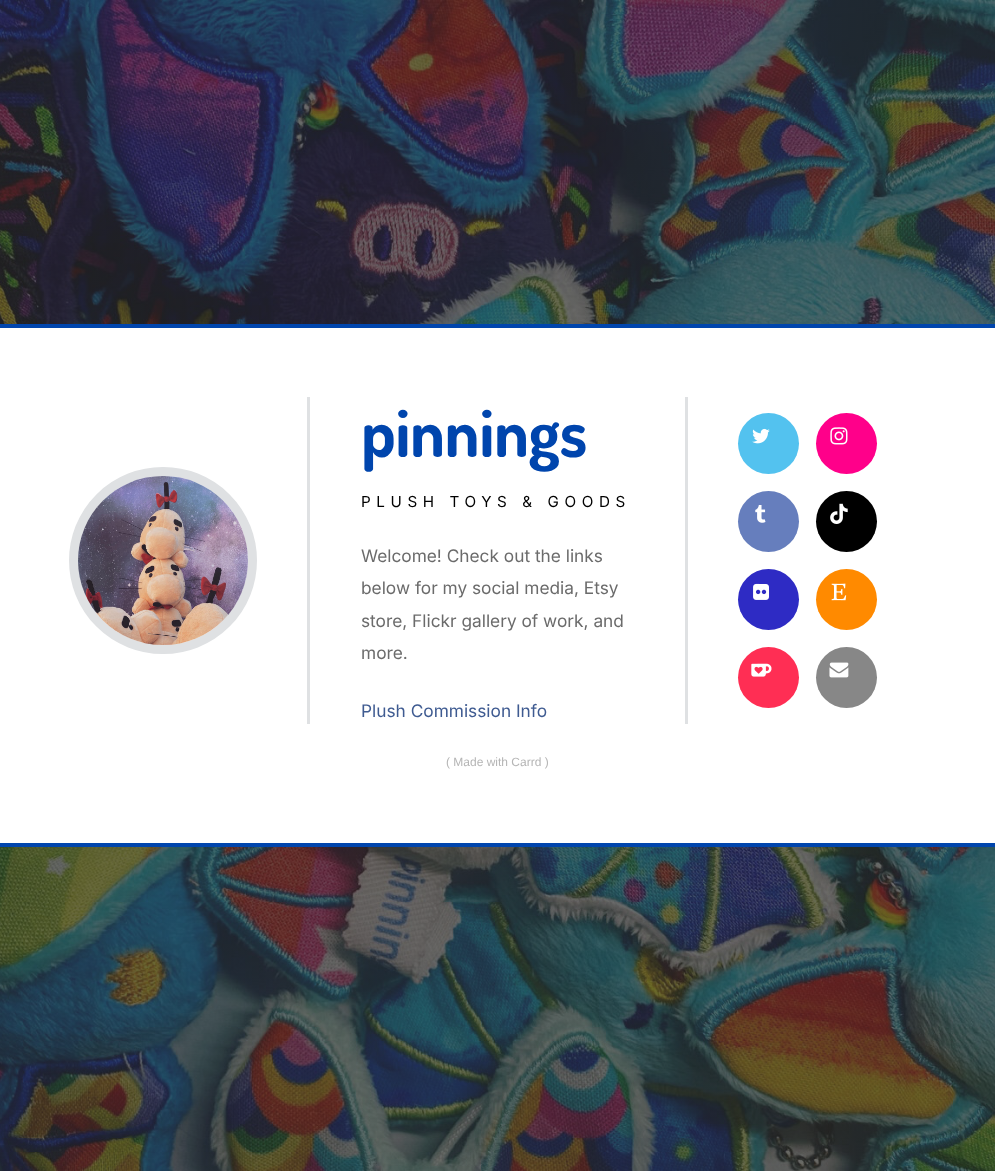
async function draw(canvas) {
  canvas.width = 995
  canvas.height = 1171
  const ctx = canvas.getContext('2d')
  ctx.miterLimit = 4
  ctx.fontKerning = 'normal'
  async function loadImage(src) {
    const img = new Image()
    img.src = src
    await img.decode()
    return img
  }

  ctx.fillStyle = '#fff'
  ctx.fillRect(0, 0, 995, 1171)
  ctx.drawImage(await loadImage('image0.png'), 0, 0, 995, 1171)
  ctx.fillRect(0, 328, 995, 515)
  ctx.fillStyle = '#0045ad'
  ctx.fillRect(0, 324, 995, 4)
  ctx.fillRect(0, 843, 995, 4)
  ctx.beginPath()
  ctx.roundRect(73.5, 471.5, 179, 178, 89)
  ctx.strokeStyle = '#dfe1e3'
  ctx.lineWidth = 9
  ctx.stroke()
  ctx.drawImage(await loadImage('image1.png'), 78, 476, 170, 169)
  ctx.fillStyle = '#dfe1e3'
  ctx.fillRect(307, 397, 3, 327)
  ctx.letterSpacing = '-0.5px'
  ctx.font = 'bold 67px Dosis'
  ctx.fillStyle = '#0045ad'
  ctx.fillText('pinnings', 361, 457)
  ctx.letterSpacing = '5.6px'
  ctx.font = '15.2px Inter'
  ctx.fillStyle = '#000'
  ctx.fillText('PLUSH TOYS & GOODS', 361, 507)
  ctx.letterSpacing = '0px'
  ctx.font = '17.3px Inter'
  ctx.fillStyle = '#6b6b6b'
  ctx.fillText('Welcome! Check out the links', 361, 562)
  ctx.fillText('below for my social media, Etsy', 361, 594)
  ctx.fillText('store, Flickr gallery of work, and', 361, 627)
  ctx.fillText('more.', 361, 659)
  ctx.fillStyle = '#3f5b91'
  ctx.fillText('Plush Commission Info', 361, 717)
  ctx.fillStyle = '#dfe1e3'
  ctx.fillRect(685, 397, 3, 327)
  ctx.fillStyle = '#53c2ef'
  ctx.beginPath()
  ctx.arc(768.5, 443.5, 30.5, 0, 2 * Math.PI)
  ctx.fill()
  ctx.drawImage(await loadImage('image2.png'), 752, 428, 18, 16)
  ctx.fillStyle = '#ff008a'
  ctx.beginPath()
  ctx.arc(846.5, 443.5, 30.5, 0, 2 * Math.PI)
  ctx.fill()
  ctx.drawImage(await loadImage('image3.png'), 830, 427, 18, 18)
  ctx.fillStyle = '#667ebd'
  ctx.beginPath()
  ctx.arc(768.5, 521.5, 30.5, 0, 2 * Math.PI)
  ctx.fill()
  ctx.drawImage(await loadImage('image4.png'), 755, 505, 11, 18)
  ctx.fillStyle = '#000'
  ctx.beginPath()
  ctx.arc(846.5, 521.5, 30.5, 0, 2 * Math.PI)
  ctx.fill()
  ctx.drawImage(await loadImage('image5.png'), 830, 503, 18, 21)
  ctx.fillStyle = '#2e2bc4'
  ctx.beginPath()
  ctx.arc(768.5, 599.5, 30.5, 0, 2 * Math.PI)
  ctx.fill()
  ctx.drawImage(await loadImage('image6.png'), 753, 583, 16, 17)
  ctx.fillStyle = '#ff8a00'
  ctx.beginPath()
  ctx.arc(846.5, 599.5, 30.5, 0, 2 * Math.PI)
  ctx.fill()
  ctx.drawImage(await loadImage('image7.png'), 831, 583, 16, 18)
  ctx.fillStyle = '#ff2e54'
  ctx.beginPath()
  ctx.arc(768.5, 677.5, 30.5, 0, 2 * Math.PI)
  ctx.fill()
  ctx.drawImage(await loadImage('image8.png'), 751, 663, 21, 14)
  ctx.fillStyle = '#878787'
  ctx.beginPath()
  ctx.arc(846.5, 677.5, 30.5, 0, 2 * Math.PI)
  ctx.fill()
  ctx.drawImage(await loadImage('image9.png'), 829, 662, 20, 16)
  ctx.font = '12px Liberation Sans'
  ctx.fillStyle = '#b5b5b5'
  ctx.fillText('( Made with Carrd )', 446, 766)
}

draw(document.querySelector('canvas'))
